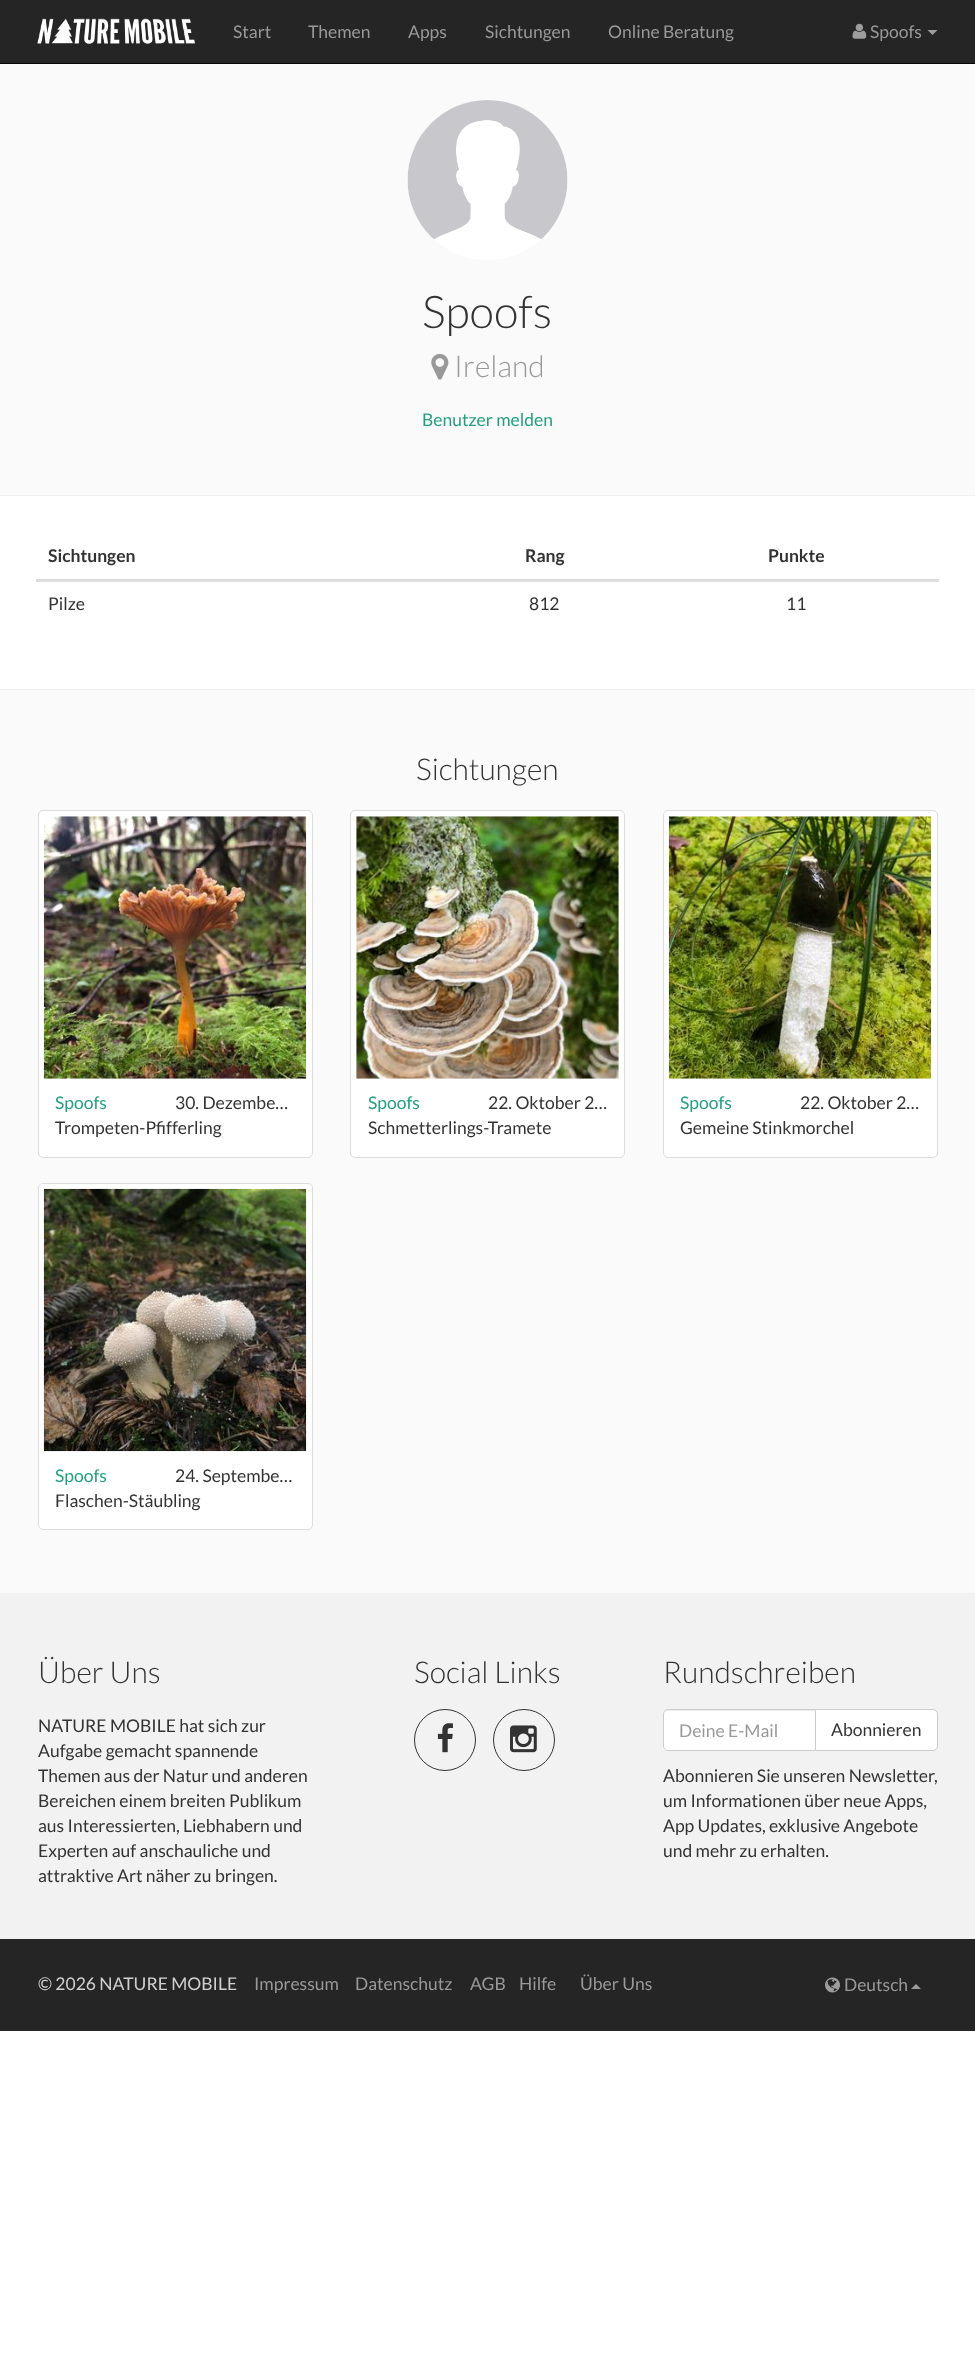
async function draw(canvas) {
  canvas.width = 975
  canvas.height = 2373
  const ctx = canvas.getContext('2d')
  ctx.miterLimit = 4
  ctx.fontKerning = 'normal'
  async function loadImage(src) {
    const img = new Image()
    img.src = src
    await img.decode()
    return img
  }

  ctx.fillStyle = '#fff'
  ctx.fillRect(0, 0, 975, 2373)
  ctx.fillStyle = '#252525'
  ctx.fillRect(0, 0, 975, 63)
  ctx.fillStyle = '#080808'
  ctx.fillRect(0, 63, 975, 1)
  ctx.drawImage(await loadImage('image0.png'), 37, 18, 158, 26)
  ctx.font = '17.5px Lato'
  ctx.fillStyle = '#999'
  ctx.fillText('Start', 233, 38)
  ctx.fillText('Themen', 308, 38)
  ctx.fillText('Apps', 408, 38)
  ctx.fillText('Sichtungen', 485, 38)
  ctx.fillText('Online Beratung', 608, 38)
  ctx.drawImage(await loadImage('image1.png'), 852, 23, 15, 16)
  ctx.fillText('Spoofs', 870, 38)
  ctx.fillStyle = '#9d9d9d'
  ctx.beginPath()
  ctx.moveTo(927.5, 30)
  ctx.lineTo(937.5, 30)
  ctx.lineTo(932.5, 35)
  ctx.closePath()
  ctx.fill()
  ctx.fillStyle = '#fafafa'
  ctx.fillRect(0, 64, 975, 431)
  ctx.fillStyle = '#f0f0f0'
  ctx.fillRect(0, 495, 975, 1)
  ctx.drawImage(await loadImage('image2.png'), 407, 100, 161, 160)
  ctx.font = '300 45px Lato'
  ctx.fillStyle = '#333'
  ctx.fillText('Spoofs', 422, 328)
  ctx.drawImage(await loadImage('image3.png'), 431, 354, 18, 26)
  ctx.font = '300 30px Lato'
  ctx.fillStyle = '#999'
  ctx.fillText('Ireland', 454, 377)
  ctx.font = '17.5px Lato'
  ctx.fillStyle = '#239e81'
  ctx.fillText('Benutzer melden', 422, 426)
  ctx.fillStyle = '#f0f0f0'
  ctx.fillRect(0, 689, 975, 1)
  ctx.font = 'bold 17.5px Lato'
  ctx.fillStyle = '#333'
  ctx.fillText('Sichtungen', 48, 562)
  ctx.fillText('Rang', 525, 562)
  ctx.fillStyle = '#ddd'
  ctx.fillRect(36, 579, 903, 3)
  ctx.fillStyle = '#333'
  ctx.fillText('Punkte', 768, 562)
  ctx.font = '17.5px Lato'
  ctx.fillText('Pilze', 48, 610)
  ctx.fillText('812', 529, 610)
  ctx.fillText('11', 786, 610)
  ctx.fillStyle = '#fafafa'
  ctx.fillRect(0, 690, 975, 903)
  ctx.font = '300 30px Lato'
  ctx.fillStyle = '#333'
  ctx.fillText('Sichtungen', 416, 780)
  ctx.fillStyle = '#fff'
  ctx.beginPath()
  ctx.roundRect(38.5, 810.5, 274, 347, 4.5)
  ctx.fill()
  ctx.strokeStyle = '#ddd'
  ctx.stroke()
  ctx.drawImage(await loadImage('image4.png'), 43, 816, 264, 263)
  ctx.font = '17.5px Lato'
  ctx.fillStyle = '#239e81'
  ctx.fillText('Spoofs', 55, 1109)
  ctx.fillStyle = '#333'
  ctx.fillText('30. Dezembe…', 175, 1109)
  ctx.fillText('Trompeten-Pfifferling', 55, 1134)
  ctx.fillStyle = '#fff'
  ctx.beginPath()
  ctx.roundRect(350.5, 810.5, 274, 347, 4.5)
  ctx.fill()
  ctx.stroke()
  ctx.drawImage(await loadImage('image5.png'), 356, 816, 263, 263)
  ctx.fillStyle = '#239e81'
  ctx.fillText('Spoofs', 368, 1109)
  ctx.fillStyle = '#333'
  ctx.fillText('22. Oktober 2…', 488, 1109)
  ctx.fillText('Schmetterlings-Tramete', 368, 1134)
  ctx.fillStyle = '#fff'
  ctx.beginPath()
  ctx.roundRect(663.5, 810.5, 274, 347, 4.5)
  ctx.fill()
  ctx.stroke()
  ctx.drawImage(await loadImage('image6.png'), 668, 816, 264, 263)
  ctx.fillStyle = '#239e81'
  ctx.fillText('Spoofs', 680, 1109)
  ctx.fillStyle = '#333'
  ctx.fillText('22. Oktober 2…', 800, 1109)
  ctx.fillText('Gemeine Stinkmorchel', 680, 1134)
  ctx.fillStyle = '#fff'
  ctx.beginPath()
  ctx.roundRect(38.5, 1183.5, 274, 346, 4.5)
  ctx.fill()
  ctx.stroke()
  ctx.drawImage(await loadImage('image7.png'), 43, 1188, 264, 264)
  ctx.fillStyle = '#239e81'
  ctx.fillText('Spoofs', 55, 1482)
  ctx.fillStyle = '#333'
  ctx.fillText('24. Septembe…', 175, 1482)
  ctx.fillText('Flaschen-Stäubling', 55, 1507)
  ctx.fillStyle = '#f2f2f2'
  ctx.fillRect(0, 1593, 975, 346)
  ctx.font = '300 30px Lato'
  ctx.fillStyle = '#333'
  ctx.fillText('Über Uns', 38, 1683)
  ctx.font = '17.5px Lato'
  ctx.fillText('NATURE MOBILE hat sich zur', 38, 1732)
  ctx.fillText('Aufgabe gemacht spannende', 38, 1757)
  ctx.fillText('Themen aus der Natur und anderen', 38, 1782)
  ctx.fillText('Bereichen einem breiten Publikum', 38, 1807)
  ctx.fillText('aus Interessierten, Liebhabern und', 38, 1832)
  ctx.fillText('Experten auf anschauliche und', 38, 1857)
  ctx.fillText('attraktive Art näher zu bringen.', 38, 1882)
  ctx.font = '300 30px Lato'
  ctx.fillText('Social Links', 414, 1683)
  ctx.beginPath()
  ctx.arc(445, 1740, 30.5, 0, 2 * Math.PI)
  ctx.strokeStyle = '#333'
  ctx.stroke()
  ctx.drawImage(await loadImage('image8.png'), 437, 1723, 16, 30)
  ctx.beginPath()
  ctx.arc(524, 1740, 30.5, 0, 2 * Math.PI)
  ctx.stroke()
  ctx.drawImage(await loadImage('image9.png'), 510, 1725, 27, 28)
  ctx.fillText('Rundschreiben', 663, 1683)
  ctx.fillStyle = '#fff'
  ctx.beginPath()
  ctx.roundRect(815.5, 1709.5, 122, 41, [0, 4.5, 4.5, 0])
  ctx.fill()
  ctx.strokeStyle = '#ccc'
  ctx.stroke()
  ctx.beginPath()
  ctx.roundRect(663, 1709, 153, 42, [5, 0, 0, 5])
  ctx.fill()
  ctx.fillStyle = '#ececec'
  ctx.beginPath()
  ctx.moveTo(668, 1711)
  ctx.lineTo(815, 1711)
  ctx.lineTo(815, 1710)
  ctx.lineTo(668, 1710)
  ctx.bezierCurveTo(665, 1710, 664, 1712, 664, 1715)
  ctx.bezierCurveTo(664, 1713, 665, 1711, 668, 1711)
  ctx.closePath()
  ctx.fill()
  ctx.beginPath()
  ctx.roundRect(663.5, 1709.5, 152, 41, [4.5, 0, 0, 4.5])
  ctx.stroke()
  ctx.font = '17.5px Lato'
  ctx.fillStyle = '#999'
  ctx.fillText('Deine E-Mail', 679, 1737)
  ctx.fillStyle = '#333'
  ctx.fillText('Abonnieren', 831, 1736)
  ctx.fillText('Abonnieren Sie unseren Newsletter,', 663, 1782)
  ctx.fillText('um Informationen über neue Apps,', 663, 1807)
  ctx.fillText('App Updates, exklusive Angebote', 663, 1832)
  ctx.fillText('und mehr zu erhalten.', 663, 1857)
  ctx.fillStyle = '#252525'
  ctx.fillRect(0, 1939, 975, 92)
  ctx.fillStyle = '#d1d0d0'
  ctx.fillText('© 2026 NATURE MOBILE', 38, 1990)
  ctx.fillStyle = '#999'
  ctx.fillText('Impressum', 254, 1990)
  ctx.fillText('Datenschutz', 355, 1990)
  ctx.fillText('AGB', 470, 1990)
  ctx.fillText('Hilfe', 519, 1990)
  ctx.fillText('Über Uns', 580, 1990)
  ctx.drawImage(await loadImage('image10.png'), 825, 1977, 15, 16)
  ctx.fillText('Deutsch', 844, 1991)
  ctx.fillStyle = '#9d9d9d'
  ctx.beginPath()
  ctx.moveTo(921, 1989)
  ctx.lineTo(911, 1989)
  ctx.lineTo(916, 1984)
  ctx.closePath()
  ctx.fill()
}

draw(document.querySelector('canvas'))
